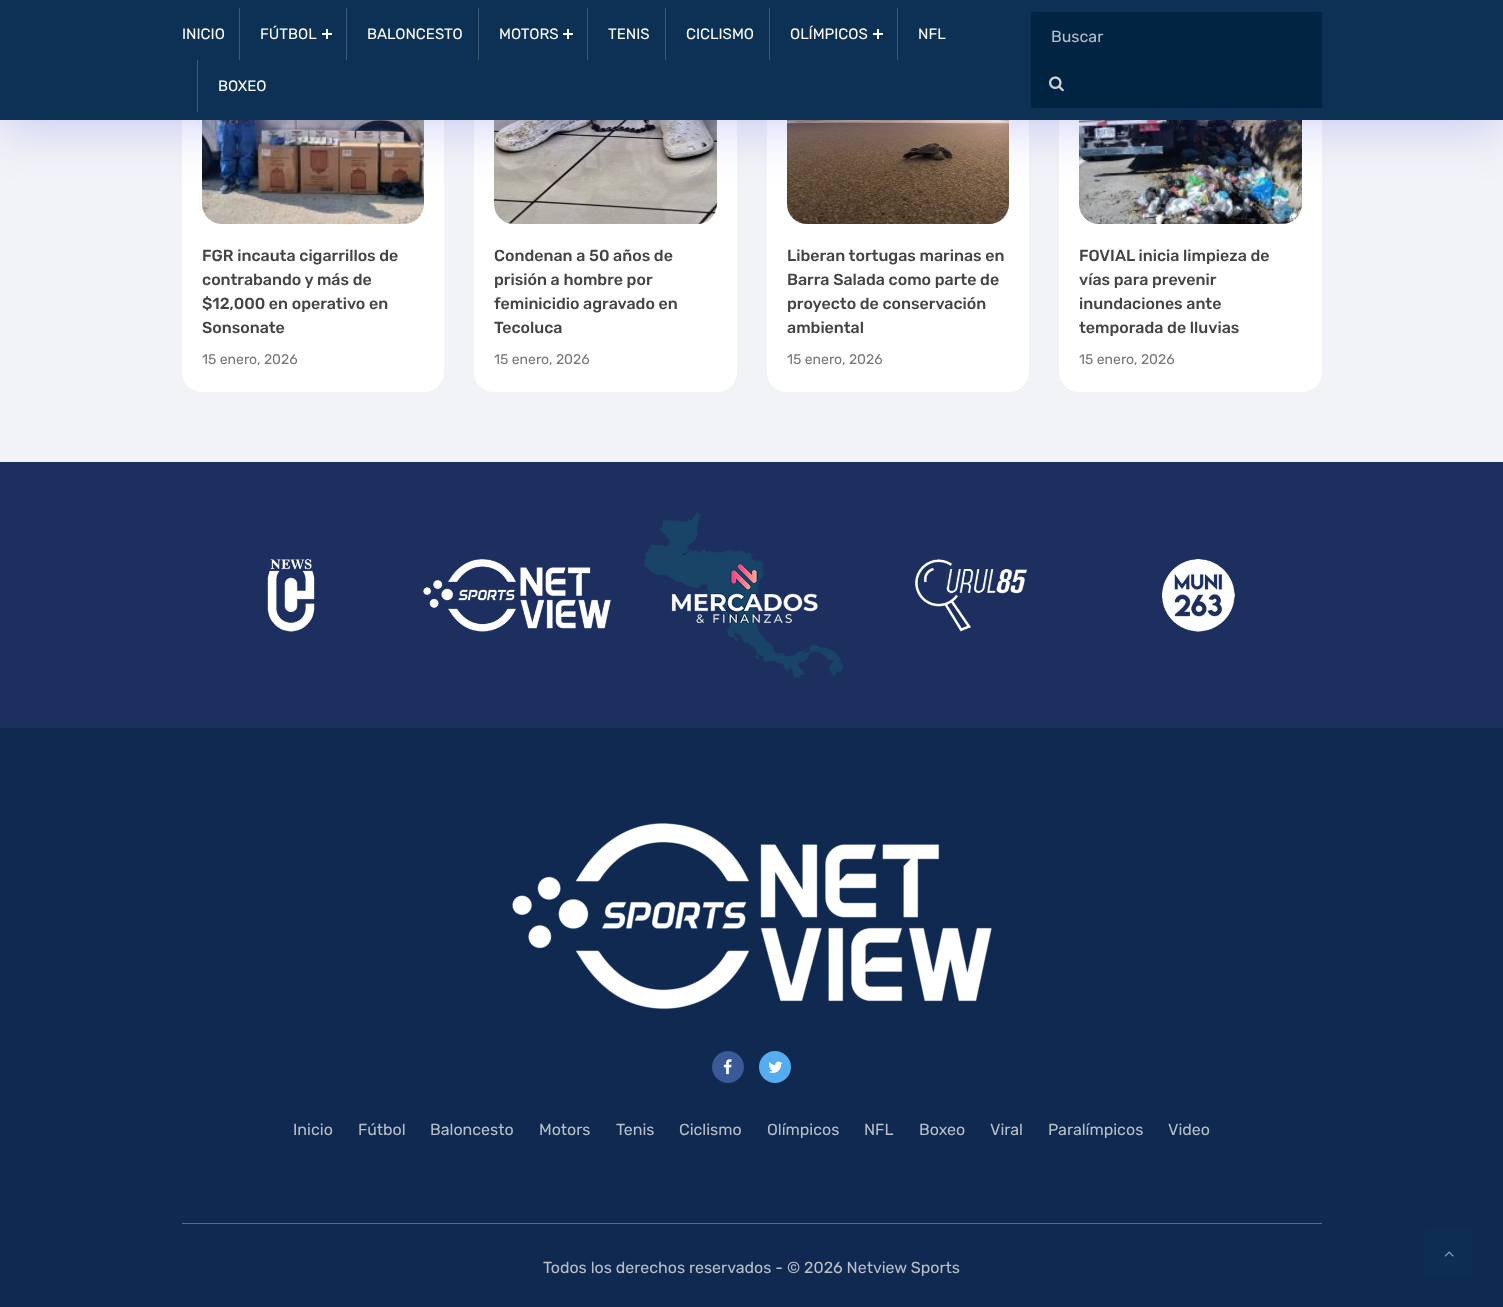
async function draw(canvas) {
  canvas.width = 1503
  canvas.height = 1307
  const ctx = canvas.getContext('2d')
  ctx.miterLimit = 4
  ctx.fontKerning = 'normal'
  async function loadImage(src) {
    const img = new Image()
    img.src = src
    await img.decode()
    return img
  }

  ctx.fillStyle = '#f2f3f7'
  ctx.fillRect(0, 0, 1503, 1307)
  ctx.fillStyle = '#fff'
  ctx.beginPath()
  ctx.roundRect(182, 4, 262, 388, 20)
  ctx.fill()
  ctx.drawImage(await loadImage('image1.png'), 202, 120, 222, 104)
  ctx.beginPath()
  ctx.roundRect(474, 4, 263, 388, 20)
  ctx.fill()
  ctx.drawImage(await loadImage('image2.png'), 494, 120, 223, 104)
  ctx.beginPath()
  ctx.roundRect(767, 4, 262, 388, 20)
  ctx.fill()
  ctx.drawImage(await loadImage('image3.png'), 787, 120, 222, 104)
  ctx.beginPath()
  ctx.roundRect(1059, 4, 263, 388, 20)
  ctx.fill()
  ctx.drawImage(await loadImage('image4.png'), 1079, 120, 223, 104)
  ctx.fillStyle = '#2e38dc33'
  ctx.filter = 'blur(25px)'
  ctx.beginPath()
  ctx.rect(0, 10, 1503, 120)
  ctx.fill()
  ctx.filter = 'none'
  ctx.fillStyle = '#0c3155'
  ctx.fillRect(0, 0, 1503, 120)
  ctx.font = '15px Rubik'
  ctx.fillStyle = '#fff'
  ctx.fillText('INICIO', 182, 39)
  ctx.fillStyle = '#3d5a77'
  ctx.fillRect(239, 8, 1, 52)
  ctx.fillStyle = '#fff'
  ctx.fillText('FÚTBOL', 260, 39)
  ctx.fillRect(326, 29, 2, 10)
  ctx.fillRect(322, 33, 10, 2)
  ctx.fillStyle = '#3d5a77'
  ctx.fillRect(346, 8, 1, 52)
  ctx.fillStyle = '#fff'
  ctx.fillText('BALONCESTO', 367, 39)
  ctx.fillStyle = '#3d5a77'
  ctx.fillRect(478, 8, 1, 52)
  ctx.fillStyle = '#fff'
  ctx.fillText('MOTORS', 499, 39)
  ctx.fillRect(567, 29, 2, 10)
  ctx.fillRect(563, 33, 10, 2)
  ctx.fillStyle = '#3d5a77'
  ctx.fillRect(587, 8, 1, 52)
  ctx.fillStyle = '#fff'
  ctx.fillText('TENIS', 608, 39)
  ctx.fillStyle = '#3d5a77'
  ctx.fillRect(665, 8, 1, 52)
  ctx.fillStyle = '#fff'
  ctx.fillText('CICLISMO', 686, 39)
  ctx.fillStyle = '#3d5a77'
  ctx.fillRect(769, 8, 1, 52)
  ctx.fillStyle = '#fff'
  ctx.fillText('OLÍMPICOS', 790, 39)
  ctx.fillRect(877, 29, 2, 10)
  ctx.fillRect(873, 33, 10, 2)
  ctx.fillStyle = '#3d5a77'
  ctx.fillRect(897, 8, 1, 52)
  ctx.fillStyle = '#fff'
  ctx.fillText('NFL', 918, 39)
  ctx.fillStyle = '#3d5a77'
  ctx.fillRect(197, 60, 1, 52)
  ctx.fillStyle = '#fff'
  ctx.fillText('BOXEO', 218, 91)
  ctx.fillStyle = '#022443'
  ctx.fillRect(1031, 12, 291, 96)
  ctx.font = '16px Rubik'
  ctx.fillStyle = '#b7bfcb'
  ctx.fillText('Buscar', 1051, 42)
  ctx.drawImage(await loadImage('image0.png'), 1049, 76, 15, 16)
  ctx.font = '500 16px Rubik'
  ctx.fillStyle = '#444'
  ctx.fillText('FGR incauta cigarrillos de', 202, 261)
  ctx.fillText('contrabando y más de', 202, 285)
  ctx.fillText('$12,000 en operativo en', 202, 309)
  ctx.fillText('Sonsonate', 202, 333)
  ctx.font = '14px Rubik'
  ctx.fillStyle = '#777'
  ctx.fillText('15 enero, 2026', 202, 364)
  ctx.font = '500 16px Rubik'
  ctx.fillStyle = '#444'
  ctx.fillText('Condenan a 50 años de', 494, 261)
  ctx.fillText('prisión a hombre por', 494, 285)
  ctx.fillText('feminicidio agravado en', 494, 309)
  ctx.fillText('Tecoluca', 494, 333)
  ctx.font = '14px Rubik'
  ctx.fillStyle = '#777'
  ctx.fillText('15 enero, 2026', 494, 364)
  ctx.font = '500 16px Rubik'
  ctx.fillStyle = '#444'
  ctx.fillText('Liberan tortugas marinas en', 787, 261)
  ctx.fillText('Barra Salada como parte de', 787, 285)
  ctx.fillText('proyecto de conservación', 787, 309)
  ctx.fillText('ambiental', 787, 333)
  ctx.font = '14px Rubik'
  ctx.fillStyle = '#777'
  ctx.fillText('15 enero, 2026', 787, 364)
  ctx.font = '500 16px Rubik'
  ctx.fillStyle = '#444'
  ctx.fillText('FOVIAL inicia limpieza de', 1079, 261)
  ctx.fillText('vías para prevenir', 1079, 285)
  ctx.fillText('inundaciones ante', 1079, 309)
  ctx.fillText('temporada de lluvias', 1079, 333)
  ctx.font = '14px Rubik'
  ctx.fillStyle = '#777'
  ctx.fillText('15 enero, 2026', 1079, 364)
  ctx.fillStyle = '#1d2f5f'
  ctx.fillRect(0, 462, 1503, 266)
  ctx.drawImage(await loadImage('image5.png'), 267, 559, 48, 73)
  ctx.drawImage(await loadImage('image6.png'), 423, 559, 188, 73)
  ctx.drawImage(await loadImage('image7.png'), 644, 512, 200, 166)
  ctx.drawImage(await loadImage('image8.png'), 915, 559, 112, 73)
  ctx.drawImage(await loadImage('image9.png'), 1162, 559, 73, 73)
  ctx.fillStyle = '#102950'
  ctx.fillRect(0, 728, 1503, 579)
  ctx.drawImage(await loadImage('image10.png'), 512, 823, 480, 186)
  ctx.fillStyle = '#3b5998'
  ctx.beginPath()
  ctx.arc(728, 1067, 16, 0, 2 * Math.PI)
  ctx.fill()
  ctx.drawImage(await loadImage('image11.png'), 723, 1059, 9, 16)
  ctx.fillStyle = '#55acee'
  ctx.beginPath()
  ctx.arc(775, 1067, 16, 0, 2 * Math.PI)
  ctx.fill()
  ctx.drawImage(await loadImage('image12.png'), 768, 1061, 15, 12)
  ctx.font = '16px Rubik'
  ctx.fillStyle = '#b7bfcb'
  ctx.fillText('Inicio', 293, 1135)
  ctx.fillText('Fútbol', 358, 1135)
  ctx.fillText('Baloncesto', 430, 1135)
  ctx.fillText('Motors', 539, 1135)
  ctx.fillText('Tenis', 616, 1135)
  ctx.fillText('Ciclismo', 679, 1135)
  ctx.fillText('Olímpicos', 767, 1135)
  ctx.fillText('NFL', 864, 1135)
  ctx.fillText('Boxeo', 919, 1135)
  ctx.fillText('Viral', 990, 1135)
  ctx.fillText('Paralímpicos', 1048, 1135)
  ctx.fillText('Video', 1168, 1135)
  ctx.fillStyle = '#586a85'
  ctx.fillRect(182, 1223, 1140, 1)
  ctx.fillStyle = '#b7bfcb'
  ctx.fillText('Todos los derechos reservados - © 2026 Netview Sports', 543, 1273)
  ctx.fillStyle = '#0e2d53'
  ctx.beginPath()
  ctx.roundRect(1425, 1229, 48, 48, 4)
  ctx.fill()
  ctx.drawImage(await loadImage('image13.png'), 1444, 1251, 10, 6)
}

draw(document.querySelector('canvas'))
